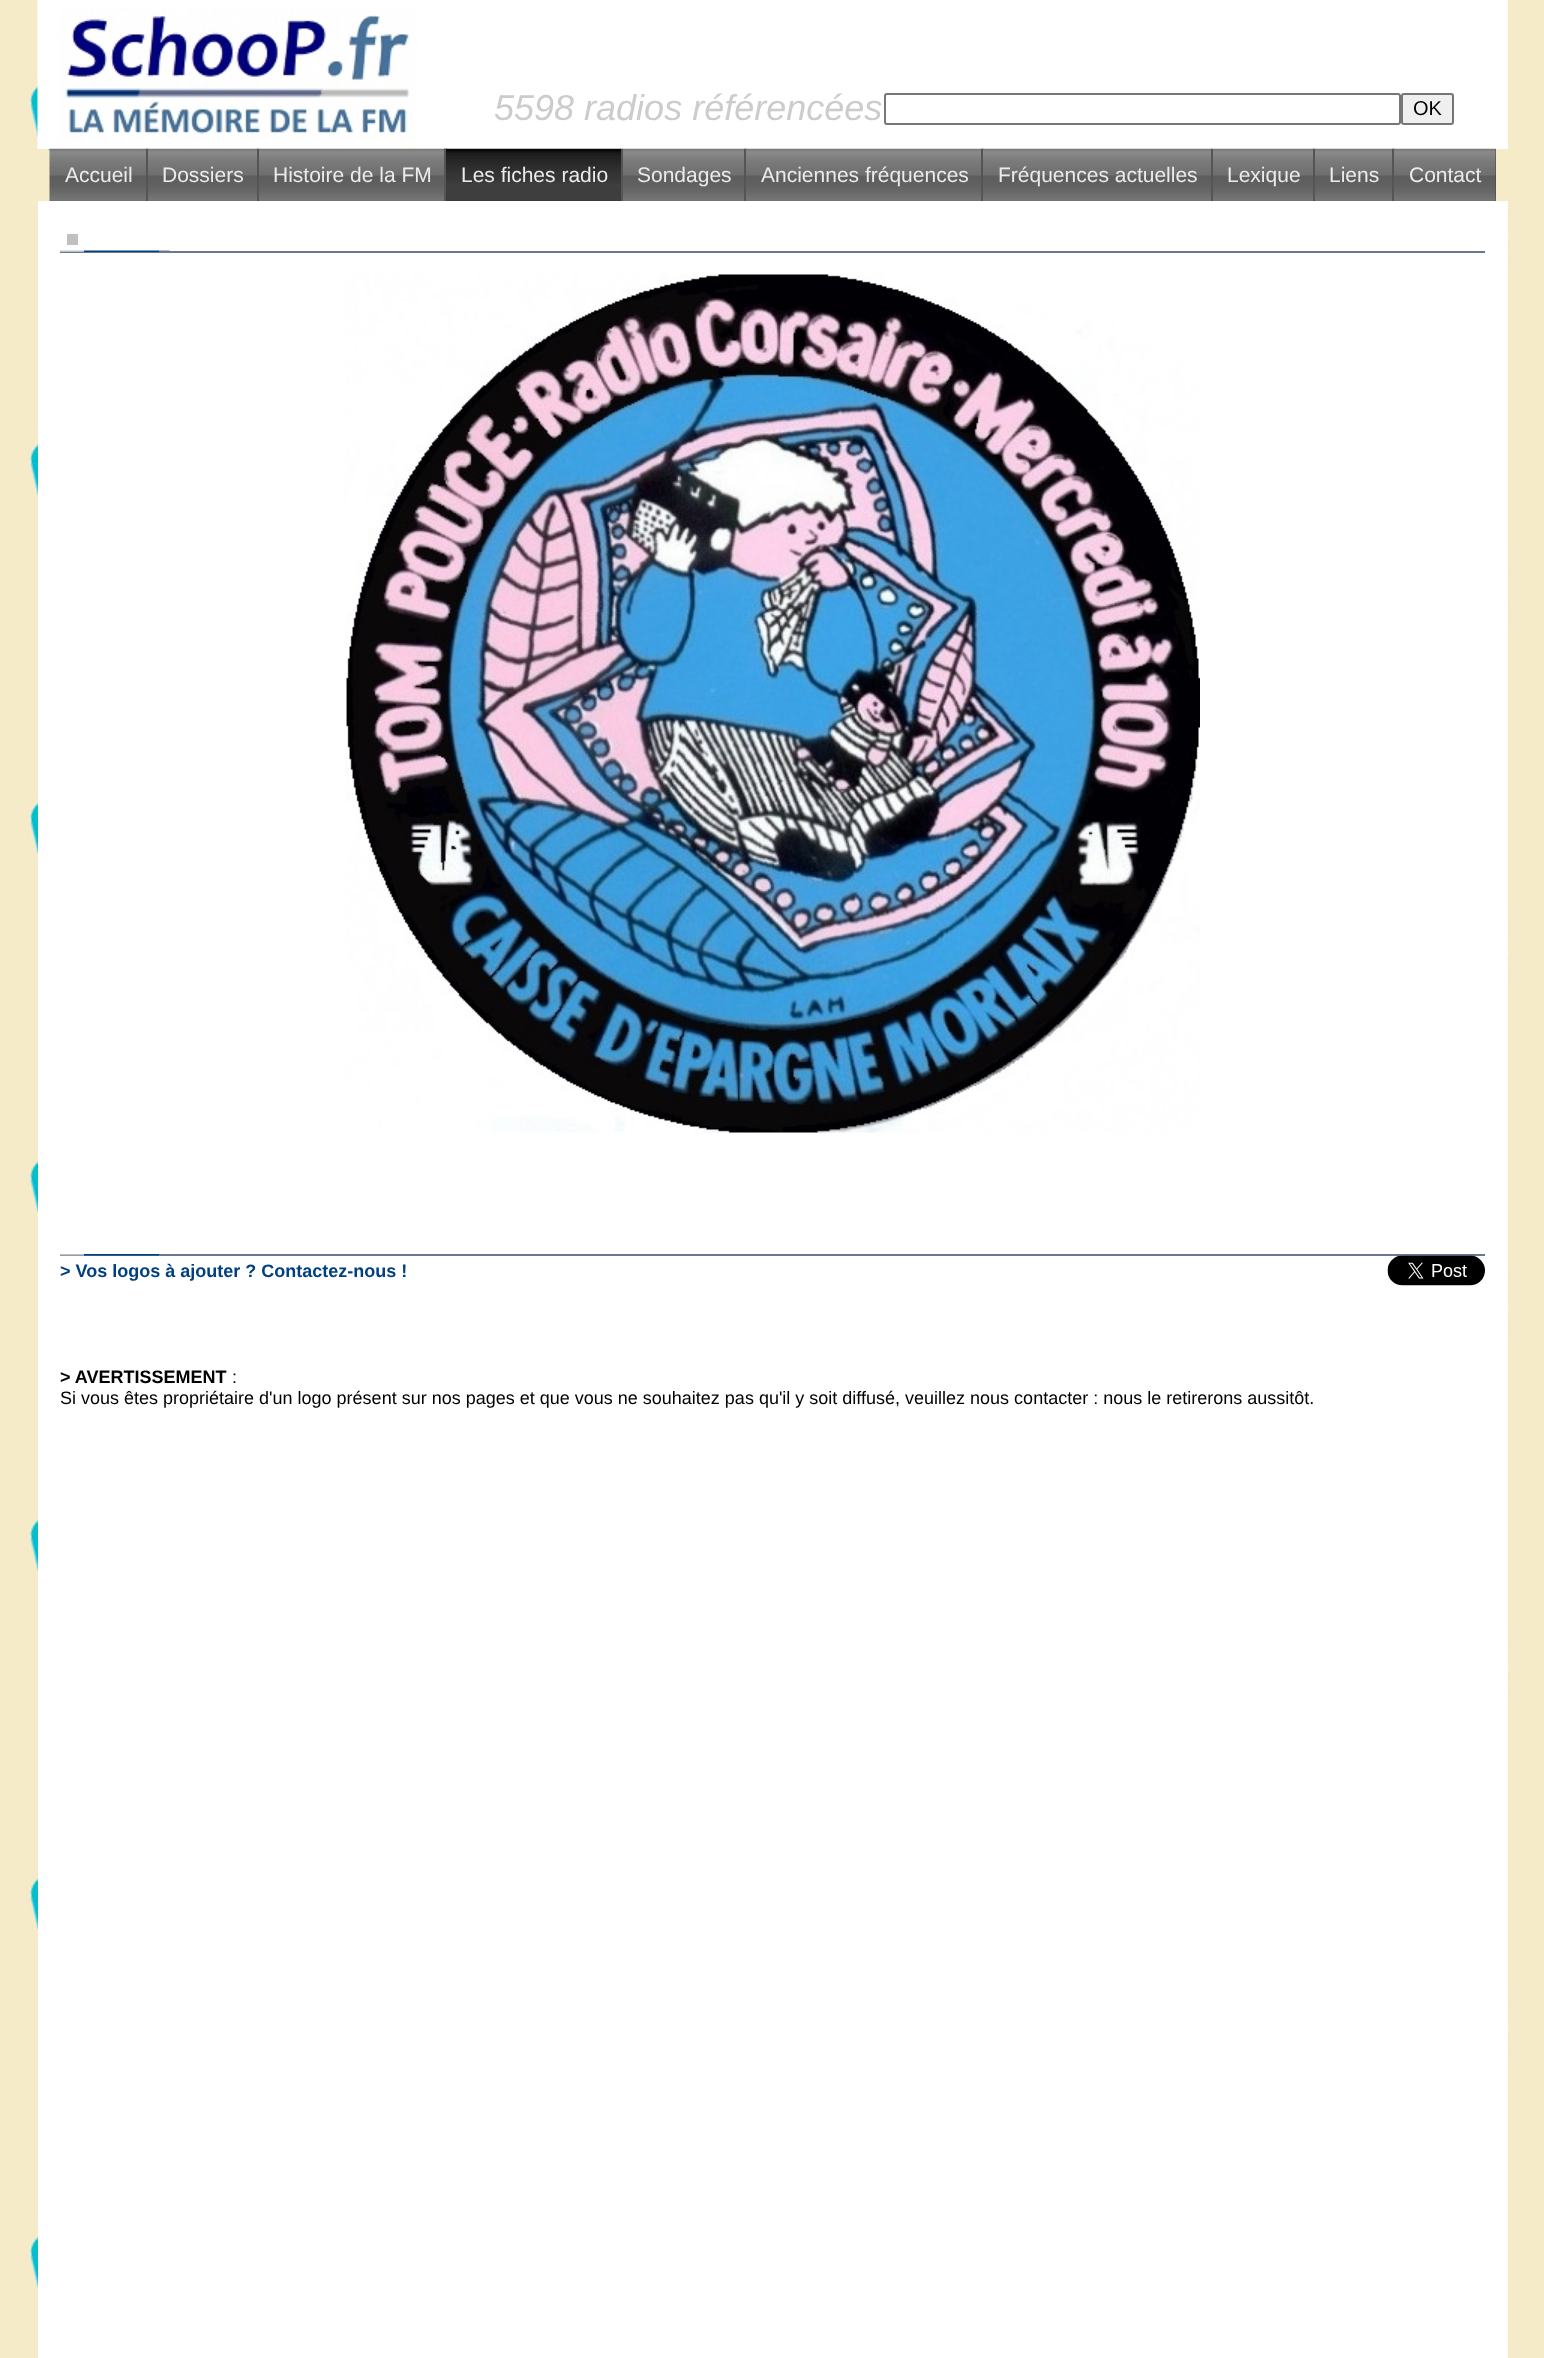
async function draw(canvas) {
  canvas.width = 1544
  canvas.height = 2358
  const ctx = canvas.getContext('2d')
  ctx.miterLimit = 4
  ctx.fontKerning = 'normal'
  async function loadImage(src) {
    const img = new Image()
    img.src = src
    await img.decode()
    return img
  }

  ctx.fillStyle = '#f6ebc9'
  ctx.fillRect(0, 0, 1544, 2358)
  ctx.drawImage(await loadImage('image0.png'), 27, 16, 1484, 2342)
  ctx.fillStyle = '#fff'
  ctx.fillRect(38, 0, 1470, 149)
  ctx.drawImage(await loadImage('image1.png'), 37, 0, 381, 149)
  ctx.font = 'italic 36px Liberation Sans'
  ctx.fillStyle = '#ccc'
  ctx.fillText('5598 radios référencées', 494, 120)
  ctx.beginPath()
  ctx.roundRect(885, 94, 515, 30, 2)
  ctx.strokeStyle = '#767676'
  ctx.lineWidth = 2
  ctx.stroke()
  ctx.fillStyle = '#efefef'
  ctx.beginPath()
  ctx.roundRect(1402, 94, 51, 30, 2)
  ctx.fill()
  ctx.stroke()
  ctx.font = '20px Liberation Sans'
  ctx.fillStyle = '#000'
  ctx.fillText('OK', 1413, 115)
  ctx.drawImage(await loadImage('image2.png'), 49, 148, 100, 53)
  ctx.font = '21px Liberation Sans'
  ctx.fillStyle = '#ebebeb'
  ctx.fillText('Accueil', 65, 182)
  ctx.drawImage(await loadImage('image3.png'), 145, 148, 115, 53)
  ctx.fillStyle = '#555'
  ctx.fillRect(146, 149, 2, 52)
  ctx.fillStyle = '#ebebeb'
  ctx.fillText('Dossiers', 162, 182)
  ctx.drawImage(await loadImage('image4.png'), 256, 148, 191, 53)
  ctx.fillStyle = '#555'
  ctx.fillRect(257, 149, 2, 52)
  ctx.fillStyle = '#ebebeb'
  ctx.fillText('Histoire de la FM', 273, 182)
  ctx.drawImage(await loadImage('image5.png'), 444, 148, 179, 53)
  ctx.fillStyle = '#555'
  ctx.fillRect(444, 149, 2, 52)
  ctx.fillStyle = '#ebebeb'
  ctx.fillText('Les fiches radio', 461, 182)
  ctx.drawImage(await loadImage('image6.png'), 621, 148, 126, 53)
  ctx.fillStyle = '#555'
  ctx.fillRect(621, 149, 2, 52)
  ctx.fillStyle = '#ebebeb'
  ctx.fillText('Sondages', 637, 182)
  ctx.drawImage(await loadImage('image7.png'), 744, 148, 240, 53)
  ctx.fillStyle = '#555'
  ctx.fillRect(744, 149, 2, 52)
  ctx.fillStyle = '#ebebeb'
  ctx.fillText('Anciennes fréquences', 761, 182)
  ctx.drawImage(await loadImage('image8.png'), 981, 148, 231, 53)
  ctx.fillStyle = '#555'
  ctx.fillRect(981, 149, 2, 52)
  ctx.fillStyle = '#ebebeb'
  ctx.fillText('Fréquences actuelles', 998, 182)
  ctx.drawImage(await loadImage('image9.png'), 1210, 148, 106, 53)
  ctx.fillStyle = '#555'
  ctx.fillRect(1211, 149, 2, 52)
  ctx.fillStyle = '#ebebeb'
  ctx.fillText('Lexique', 1227, 182)
  ctx.drawImage(await loadImage('image10.png'), 1312, 148, 83, 53)
  ctx.fillStyle = '#555'
  ctx.fillRect(1313, 149, 2, 52)
  ctx.fillStyle = '#ebebeb'
  ctx.fillText('Liens', 1329, 182)
  ctx.fillStyle = '#444'
  ctx.fillRect(1495, 149, 1, 52)
  ctx.drawImage(await loadImage('image11.png'), 1392, 148, 104, 53)
  ctx.fillStyle = '#555'
  ctx.fillRect(1392, 149, 2, 52)
  ctx.fillStyle = '#ebebeb'
  ctx.fillText('Contact', 1409, 182)
  ctx.fillStyle = '#fff'
  ctx.fillRect(38, 201, 1470, 2157)
  ctx.fillStyle = '#c0c0c0'
  ctx.fillRect(67, 234, 11, 11)
  ctx.fillStyle = '#6b7694'
  ctx.fillRect(60, 251, 1425, 2)
  ctx.drawImage(await loadImage('image12.png'), 60, 250, 24, 2)
  ctx.drawImage(await loadImage('image13.png'), 84, 250, 75, 2)
  ctx.drawImage(await loadImage('image14.png'), 159, 250, 11, 1)
  ctx.drawImage(await loadImage('image15.png'), 345, 274, 855, 859)
  ctx.fillRect(60, 1254, 1425, 2)
  ctx.drawImage(await loadImage('image16.png'), 60, 1254, 24, 2)
  ctx.drawImage(await loadImage('image17.png'), 84, 1254, 75, 2)
  ctx.font = 'bold 18px Liberation Sans'
  ctx.fillStyle = '#004080'
  ctx.fillText('> Vos logos à ajouter ? Contactez-nous !', 60, 1277)
  ctx.drawImage(await loadImage('image18.png'), 1387, 1255, 98, 31)
  ctx.fillStyle = '#000'
  ctx.fillText('> AVERTISSEMENT', 60, 1383)
  ctx.font = '18px Liberation Sans'
  ctx.fillText(':', 232, 1383)
  ctx.fillText('Si vous êtes propriétaire d\'un logo présent sur nos pages et que vous ne souhaitez pas qu\'il y soit diffusé, veuillez nous contacter : nous le retirerons aussitôt.', 60, 1404)
}

draw(document.querySelector('canvas'))
